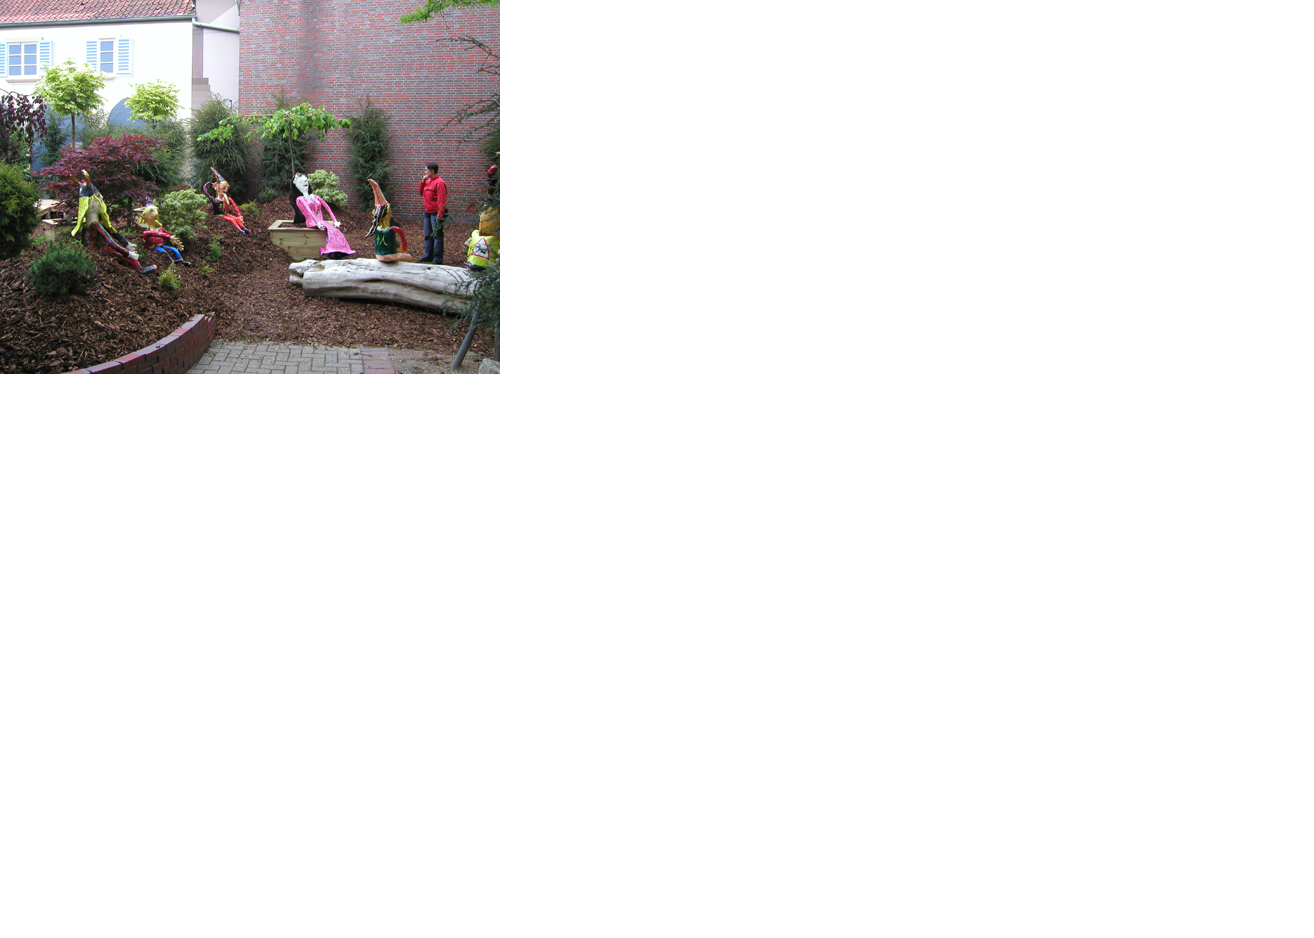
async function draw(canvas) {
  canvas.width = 1314
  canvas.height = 938
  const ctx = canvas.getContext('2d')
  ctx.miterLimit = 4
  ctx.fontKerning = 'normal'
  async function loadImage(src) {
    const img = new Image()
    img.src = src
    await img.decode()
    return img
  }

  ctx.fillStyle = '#fff'
  ctx.fillRect(0, 0, 1314, 938)
  ctx.drawImage(await loadImage('image0.png'), 0, 0, 500, 374)
}

draw(document.querySelector('canvas'))
